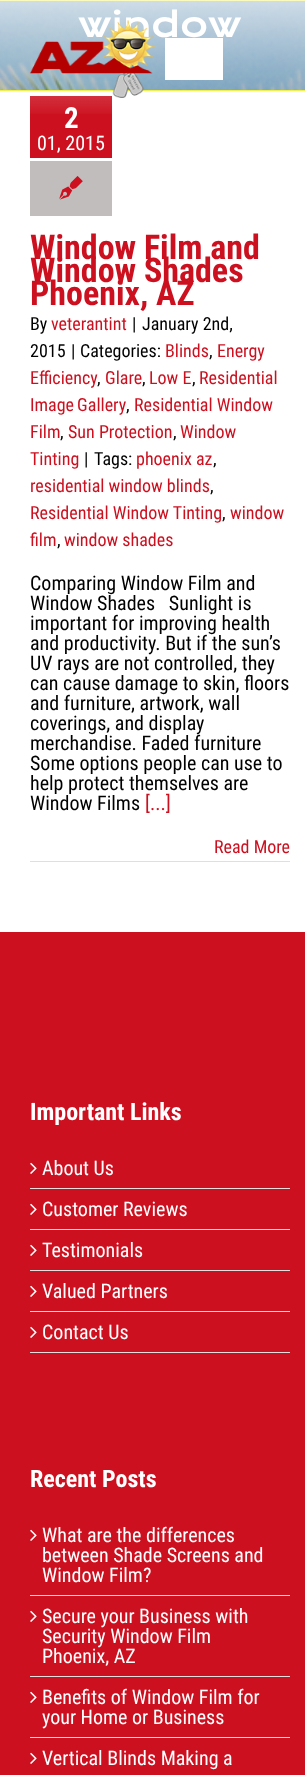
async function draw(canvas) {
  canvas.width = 305
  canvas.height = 1775
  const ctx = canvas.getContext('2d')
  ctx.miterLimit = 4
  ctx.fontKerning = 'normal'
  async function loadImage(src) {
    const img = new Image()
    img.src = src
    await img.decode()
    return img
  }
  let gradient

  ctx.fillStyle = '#fff'
  ctx.fillRect(0, 0, 305, 1775)
  ctx.drawImage(await loadImage('image1.png'), 0, 1, 305, 89)
  ctx.fillStyle = '#ee2'
  ctx.fillRect(0, 0, 305, 1)
  ctx.fillRect(0, 90, 305, 1)
  ctx.font = '34px Krona One'
  ctx.fillStyle = '#fff'
  ctx.fillText('window', 78, 37)
  ctx.fillStyle = '#cc101f'
  ctx.fillRect(30, 96, 82, 62)
  ctx.font = 'bold 29px Roboto Condensed'
  ctx.fillStyle = '#fff'
  ctx.fillText('2', 64, 128)
  gradient = ctx.createLinearGradient(160, 0, 160, 118)
  gradient.addColorStop(0, '#ffffffb3')
  gradient.addColorStop(1, '#ffffff00')
  ctx.fillStyle = gradient
  ctx.fillRect(0, 0, 305, 114)
  ctx.drawImage(await loadImage('image0.png'), 30, 20, 125, 78)
  ctx.fillStyle = '#fff'
  ctx.fillRect(165, 38, 58, 42)
  ctx.font = '20px Roboto Condensed'
  ctx.fillText('01, 2015', 37, 150)
  ctx.fillStyle = '#c1bdbd'
  ctx.fillRect(30, 161, 82, 55)
  ctx.drawImage(await loadImage('image2.png'), 59, 176, 24, 24)
  ctx.font = 'bold 34px Roboto Condensed'
  ctx.fillStyle = '#cc101f'
  ctx.fillText('Window Film and', 30, 259)
  ctx.fillText('Window Shades', 30, 282)
  ctx.fillText('Phoenix, AZ', 30, 305)
  ctx.font = '18px Roboto Condensed'
  ctx.fillStyle = '#000'
  ctx.fillText('By', 30, 330)
  ctx.fillStyle = '#cc101f'
  ctx.fillText('veterantint', 51, 330)
  ctx.fillStyle = '#000'
  ctx.fillText('|', 132, 330)
  ctx.fillText('January 2nd,', 142, 330)
  ctx.fillText('2015', 30, 357)
  ctx.fillText('|', 71, 357)
  ctx.fillText('Categories:', 80, 357)
  ctx.fillStyle = '#cc101f'
  ctx.fillText('Blinds', 165, 357)
  ctx.fillStyle = '#000'
  ctx.fillText(',', 209, 357)
  ctx.fillStyle = '#cc101f'
  ctx.fillText('Energy', 217, 357)
  ctx.fillText('Efficiency', 30, 384)
  ctx.fillStyle = '#000'
  ctx.fillText(',', 97, 384)
  ctx.fillStyle = '#cc101f'
  ctx.fillText('Glare', 105, 384)
  ctx.fillStyle = '#000'
  ctx.fillText(',', 142, 384)
  ctx.fillStyle = '#cc101f'
  ctx.fillText('Low E', 149, 384)
  ctx.fillStyle = '#000'
  ctx.fillText(',', 192, 384)
  ctx.fillStyle = '#cc101f'
  ctx.fillText('Residential', 199, 384)
  ctx.wordSpacing = '-1px'
  ctx.fillText('Image Gallery', 30, 411)
  ctx.wordSpacing = '0px'
  ctx.fillStyle = '#000'
  ctx.fillText(',', 126, 411)
  ctx.fillStyle = '#cc101f'
  ctx.fillText('Residential Window', 134, 411)
  ctx.fillText('Film', 30, 438)
  ctx.fillStyle = '#000'
  ctx.fillText(',', 60, 438)
  ctx.fillStyle = '#cc101f'
  ctx.fillText('Sun Protection', 68, 438)
  ctx.fillStyle = '#000'
  ctx.fillText(',', 173, 438)
  ctx.fillStyle = '#cc101f'
  ctx.fillText('Window', 180, 438)
  ctx.fillText('Tinting', 30, 465)
  ctx.fillStyle = '#000'
  ctx.fillText('|', 84, 465)
  ctx.fillText('Tags:', 94, 465)
  ctx.fillStyle = '#cc101f'
  ctx.fillText('phoenix az', 136, 465)
  ctx.fillStyle = '#000'
  ctx.fillText(',', 213, 465)
  ctx.fillStyle = '#cc101f'
  ctx.fillText('residential window blinds', 30, 492)
  ctx.fillStyle = '#000'
  ctx.fillText(',', 210, 492)
  ctx.fillStyle = '#cc101f'
  ctx.fillText('Residential Window Tinting', 30, 519)
  ctx.fillStyle = '#000'
  ctx.fillText(',', 222, 519)
  ctx.fillStyle = '#cc101f'
  ctx.fillText('window', 230, 519)
  ctx.fillText('film', 30, 546)
  ctx.fillStyle = '#000'
  ctx.fillText(',', 57, 546)
  ctx.fillStyle = '#cc101f'
  ctx.fillText('window shades', 64, 546)
  ctx.font = '20px Roboto Condensed'
  ctx.fillStyle = '#000'
  ctx.fillText('Comparing Window Film and', 30, 590)
  ctx.fillText('Window Shades   Sunlight is', 30, 610)
  ctx.fillText('important for improving health', 30, 630)
  ctx.fillText('and productivity. But if the sun’s', 30, 650)
  ctx.fillText('UV rays are not controlled, they', 30, 670)
  ctx.fillText('can cause damage to skin, floors', 30, 690)
  ctx.fillText('and furniture, artwork, wall', 30, 710)
  ctx.fillText('coverings, and display', 30, 730)
  ctx.fillText('merchandise. Faded furniture', 30, 750)
  ctx.fillText('Some options people can use to', 30, 770)
  ctx.fillText('help protect themselves are', 30, 790)
  ctx.fillText('Window Films', 30, 810)
  ctx.fillStyle = '#cc101f'
  ctx.fillText('[...]', 145, 810)
  ctx.fillStyle = '#e0dede'
  ctx.fillRect(30, 861, 260, 1)
  ctx.font = '18px Roboto Condensed'
  ctx.fillStyle = '#cc101f'
  ctx.fillText('Read More', 214, 853)
  ctx.fillRect(0, 932, 305, 843)
  ctx.font = 'bold 24px Roboto Condensed'
  ctx.fillStyle = '#fff'
  ctx.fillText('Important Links', 30, 1120)
  ctx.fillStyle = '#e0dede'
  ctx.fillRect(30, 1188, 260, 1)
  ctx.drawImage(await loadImage('image3.png'), 30, 1162, 7, 12)
  ctx.font = '20px Roboto Condensed'
  ctx.fillStyle = '#fff'
  ctx.fillText('About Us', 42, 1175)
  ctx.fillStyle = '#e0dede'
  ctx.fillRect(30, 1229, 260, 1)
  ctx.drawImage(await loadImage('image3.png'), 30, 1203, 7, 12)
  ctx.fillStyle = '#fff'
  ctx.fillText('Customer Reviews', 42, 1216)
  ctx.fillStyle = '#e0dede'
  ctx.fillRect(30, 1270, 260, 1)
  ctx.drawImage(await loadImage('image3.png'), 30, 1244, 7, 12)
  ctx.fillStyle = '#fff'
  ctx.fillText('Testimonials', 42, 1257)
  ctx.fillStyle = '#e0dede'
  ctx.fillRect(30, 1311, 260, 1)
  ctx.drawImage(await loadImage('image3.png'), 30, 1285, 7, 12)
  ctx.fillStyle = '#fff'
  ctx.fillText('Valued Partners', 42, 1298)
  ctx.fillStyle = '#e0dede'
  ctx.fillRect(30, 1352, 260, 1)
  ctx.drawImage(await loadImage('image3.png'), 30, 1326, 7, 12)
  ctx.fillStyle = '#fff'
  ctx.fillText('Contact Us', 42, 1339)
  ctx.font = 'bold 24px Roboto Condensed'
  ctx.fillText('Recent Posts', 30, 1487)
  ctx.fillStyle = '#e0dede'
  ctx.fillRect(30, 1595, 260, 1)
  ctx.drawImage(await loadImage('image3.png'), 30, 1529, 7, 12)
  ctx.font = '20px Roboto Condensed'
  ctx.fillStyle = '#fff'
  ctx.fillText('What are the differences', 42, 1542)
  ctx.fillText('between Shade Screens and', 42, 1562)
  ctx.fillText('Window Film?', 42, 1582)
  ctx.fillStyle = '#e0dede'
  ctx.fillRect(30, 1676, 260, 1)
  ctx.drawImage(await loadImage('image3.png'), 30, 1610, 7, 12)
  ctx.fillStyle = '#fff'
  ctx.fillText('Secure your Business with', 42, 1623)
  ctx.fillText('Security Window Film', 42, 1643)
  ctx.fillText('Phoenix, AZ', 42, 1663)
  ctx.fillStyle = '#e0dede'
  ctx.fillRect(30, 1737, 260, 1)
  ctx.drawImage(await loadImage('image3.png'), 30, 1691, 7, 12)
  ctx.fillStyle = '#fff'
  ctx.fillText('Benefits of Window Film for', 42, 1704)
  ctx.fillText('your Home or Business', 42, 1724)
  ctx.drawImage(await loadImage('image3.png'), 30, 1752, 7, 12)
  ctx.fillText('Vertical Blinds Making a', 42, 1765)
}

draw(document.querySelector('canvas'))
